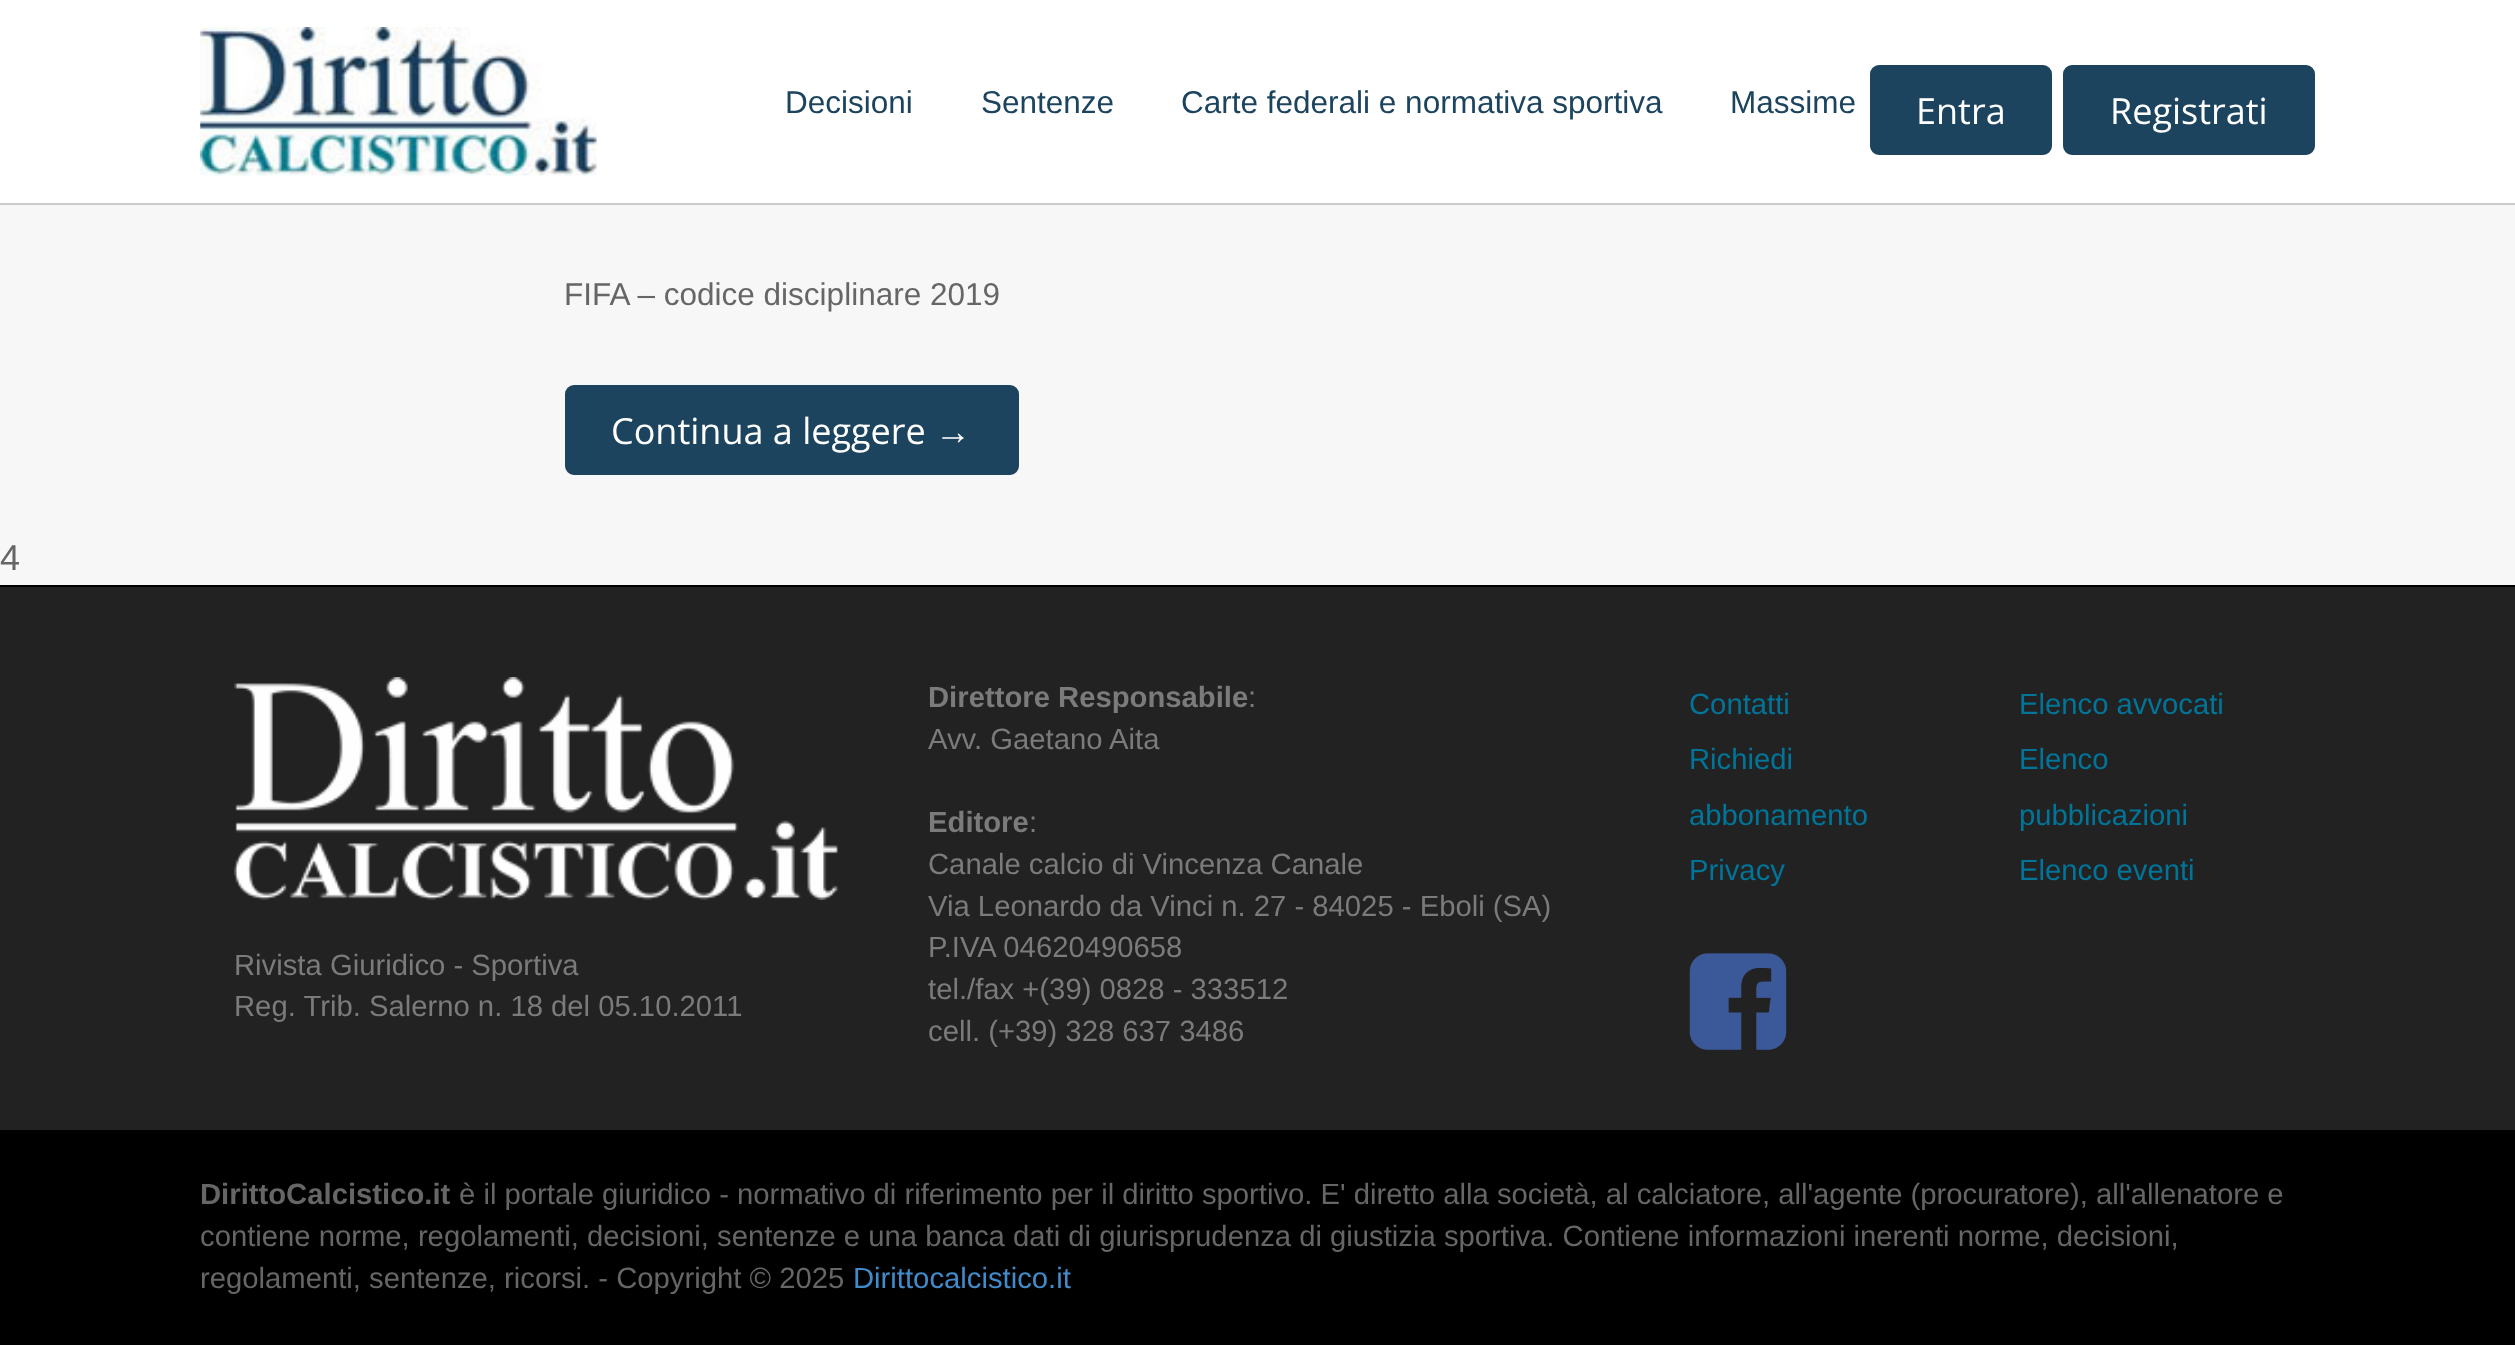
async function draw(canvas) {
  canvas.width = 2515
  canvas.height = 1345
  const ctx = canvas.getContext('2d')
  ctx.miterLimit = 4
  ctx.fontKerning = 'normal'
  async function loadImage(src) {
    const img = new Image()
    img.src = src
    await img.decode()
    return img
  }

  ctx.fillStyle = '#f7f7f7'
  ctx.fillRect(0, 0, 2515, 1345)
  ctx.fillStyle = '#fff'
  ctx.fillRect(0, 0, 2515, 203)
  ctx.fillStyle = '#ccc'
  ctx.fillRect(0, 203, 2515, 2)
  ctx.drawImage(await loadImage('image0.png'), 200, 27, 397, 149)
  ctx.font = '31.5px Liberation Sans'
  ctx.fillStyle = '#1c445e'
  ctx.fillText('Decisioni', 785, 113)
  ctx.fillText('Sentenze', 981, 113)
  ctx.fillText('Carte federali e normativa sportiva', 1181, 113)
  ctx.fillText('Massime', 1730, 113)
  ctx.beginPath()
  ctx.roundRect(1871, 66, 180, 88, 8)
  ctx.fill()
  ctx.strokeStyle = '#1c445e'
  ctx.lineWidth = 2
  ctx.stroke()
  ctx.font = '36px Open Sans'
  ctx.fillStyle = '#fff'
  ctx.fillText('Entra', 1916, 124)
  ctx.fillStyle = '#1c445e'
  ctx.beginPath()
  ctx.roundRect(2064, 66, 250, 88, 8)
  ctx.fill()
  ctx.stroke()
  ctx.fillStyle = '#fff'
  ctx.fillText('Registrati', 2110, 124)
  ctx.font = '31.5px Liberation Sans'
  ctx.fillStyle = '#666'
  ctx.fillText('FIFA – codice disciplinare 2019', 564, 305)
  ctx.fillStyle = '#1c445e'
  ctx.beginPath()
  ctx.roundRect(566, 386, 452, 88, 8)
  ctx.fill()
  ctx.stroke()
  ctx.font = '36px Open Sans'
  ctx.fillStyle = '#fff'
  ctx.fillText('Continua a leggere', 611, 444)
  ctx.font = '36px Liberation Sans'
  ctx.fillText('→', 935, 444)
  ctx.fillStyle = '#666'
  ctx.fillText('4', 0, 570)
  ctx.fillStyle = '#222'
  ctx.fillRect(0, 587, 2515, 543)
  ctx.fillStyle = '#000'
  ctx.fillRect(0, 585, 2515, 2)
  ctx.drawImage(await loadImage('image1.png'), 234, 677, 604, 223)
  ctx.font = '29.25px Liberation Sans'
  ctx.fillStyle = '#7b7b7b'
  ctx.fillText('Rivista Giuridico - Sportiva', 234, 975)
  ctx.fillText('Reg. Trib. Salerno n. 18 del 05.10.2011', 234, 1016)
  ctx.font = 'bold 29.25px Liberation Sans'
  ctx.fillText('Direttore Responsabile', 928, 707)
  ctx.font = '29.25px Liberation Sans'
  ctx.fillText(':', 1248, 707)
  ctx.fillText('Avv. Gaetano Aita', 928, 749)
  ctx.font = 'bold 29.25px Liberation Sans'
  ctx.fillText('Editore', 928, 832)
  ctx.font = '29.25px Liberation Sans'
  ctx.fillText(':', 1029, 832)
  ctx.fillText('Canale calcio di Vincenza Canale', 928, 874)
  ctx.fillText('Via Leonardo da Vinci n. 27 - 84025 - Eboli (SA)', 928, 916)
  ctx.fillText('P.IVA 04620490658', 928, 957)
  ctx.fillText('tel./fax +(39) 0828 - 333512', 928, 999)
  ctx.fillText('cell. (+39) 328 637 3486', 928, 1041)
  ctx.fillStyle = '#007599'
  ctx.fillText('Contatti', 1689, 714)
  ctx.fillText('Richiedi', 1689, 769)
  ctx.fillText('abbonamento', 1689, 825)
  ctx.fillText('Privacy', 1689, 880)
  ctx.drawImage(await loadImage('image2.png'), 1689, 953, 98, 97)
  ctx.fillText('Elenco avvocati', 2019, 714)
  ctx.fillText('Elenco', 2019, 769)
  ctx.fillText('pubblicazioni', 2019, 825)
  ctx.fillText('Elenco eventi', 2019, 880)
  ctx.fillStyle = '#000'
  ctx.fillRect(0, 1130, 2515, 215)
  ctx.font = 'bold 29.25px Liberation Sans'
  ctx.fillStyle = '#666'
  ctx.fillText('DirittoCalcistico.it', 200, 1204)
  ctx.font = '29.25px Liberation Sans'
  ctx.fillText('è il portale giuridico - normativo di riferimento per il diritto sportivo. E\' diretto alla società, al calciatore, all\'agente (procuratore), all\'allenatore e', 459, 1204)
  ctx.fillText('contiene norme, regolamenti, decisioni, sentenze e una banca dati di giurisprudenza di giustizia sportiva. Contiene informazioni inerenti norme, decisioni,', 200, 1246)
  ctx.fillText('regolamenti, sentenze, ricorsi. - Copyright © 2025', 200, 1288)
  ctx.fillStyle = '#428bca'
  ctx.fillText('Dirittocalcistico.it', 853, 1288)
}

draw(document.querySelector('canvas'))
